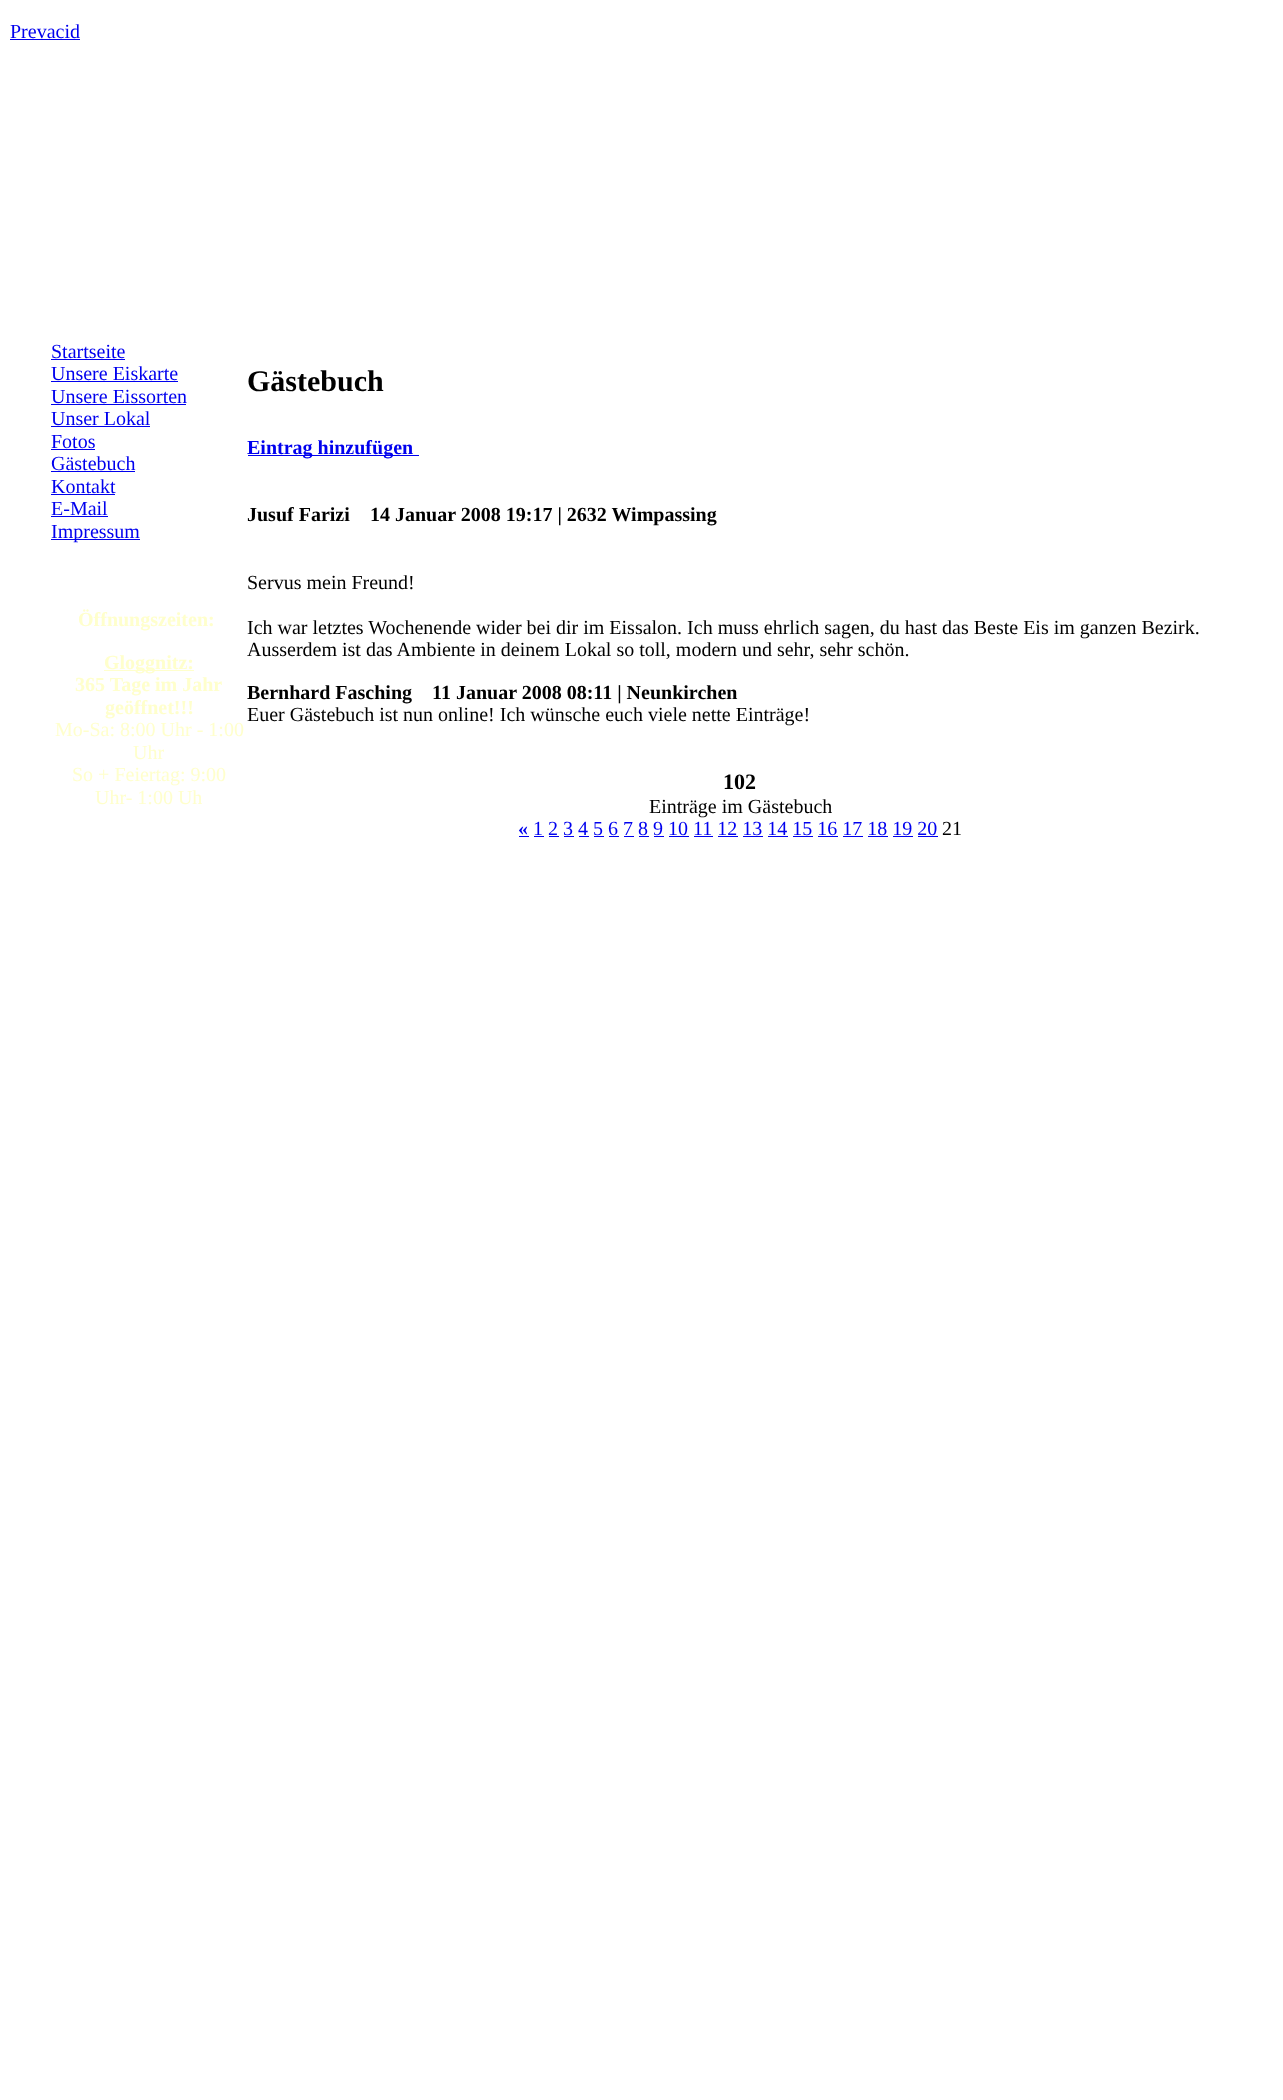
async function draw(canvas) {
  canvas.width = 1283
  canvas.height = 2100
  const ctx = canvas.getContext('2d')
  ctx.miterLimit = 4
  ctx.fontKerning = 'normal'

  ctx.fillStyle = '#fff'
  ctx.fillRect(0, 0, 1283, 2100)
  ctx.font = '20px Liberation Serif'
  ctx.fillStyle = '#00e'
  ctx.fillText('Prevacid', 10, 38)
  ctx.fillRect(10, 39, 70, 1)
  ctx.fillText('Startseite', 51, 358)
  ctx.fillRect(51, 359, 74, 1)
  ctx.fillText('Unsere Eiskarte', 51, 380)
  ctx.fillRect(51, 381, 127, 1)
  ctx.fillText('Unsere Eissorten', 51, 403)
  ctx.fillRect(51, 404, 135, 1)
  ctx.fillText('Unser Lokal', 51, 425)
  ctx.fillRect(51, 426, 99, 1)
  ctx.fillText('Fotos', 51, 448)
  ctx.fillRect(51, 449, 44, 1)
  ctx.fillText('Gästebuch', 51, 470)
  ctx.fillRect(51, 471, 84, 1)
  ctx.fillText('Kontakt', 51, 493)
  ctx.fillRect(51, 494, 64, 1)
  ctx.fillText('E-Mail', 51, 515)
  ctx.fillRect(51, 516, 57, 1)
  ctx.fillRect(51, 539, 89, 1)
  ctx.fillText('Impressum', 51, 538)
  ctx.font = 'bold 20px Liberation Serif'
  ctx.fillStyle = '#ffc'
  ctx.fillText('Öffnungszeiten:', 78, 626)
  ctx.fillRect(104, 670, 90, 1)
  ctx.fillText('Gloggnitz:', 104, 669)
  ctx.fillText('365 Tage im Jahr', 75, 691)
  ctx.fillText('geöffnet!!!', 105, 714)
  ctx.font = '20px Liberation Serif'
  ctx.fillText('Mo-Sa: 8:00 Uhr - 1:00', 55, 736)
  ctx.fillText('Uhr', 133, 759)
  ctx.fillText('So + Feiertag: 9:00', 72, 781)
  ctx.fillText('Uhr- 1:00 Uh', 95, 804)
  ctx.font = 'bold 30px Liberation Serif'
  ctx.fillStyle = '#000'
  ctx.fillText('Gästebuch', 247, 391)
  ctx.fillStyle = '#00e'
  ctx.fillRect(248, 455, 171, 1)
  ctx.font = 'bold 20px Liberation Serif'
  ctx.fillText('Eintrag hinzufügen', 247, 454)
  ctx.fillStyle = '#000'
  ctx.fillText('Jusuf Farizi', 247, 521)
  ctx.fillText('14 Januar 2008 19:17 | 2632 Wimpassing', 370, 521)
  ctx.font = '20px Liberation Serif'
  ctx.fillText('Servus mein Freund!', 247, 589)
  ctx.fillText('Ich war letztes Wochenende wider bei dir im Eissalon. Ich muss ehrlich sagen, du hast das Beste Eis im ganzen Bezirk.', 247, 634)
  ctx.fillText('Ausserdem ist das Ambiente in deinem Lokal so toll, modern und sehr, sehr schön.', 247, 656)
  ctx.font = 'bold 20px Liberation Serif'
  ctx.fillText('Bernhard Fasching', 247, 699)
  ctx.fillText('11 Januar 2008 08:11 | Neunkirchen', 432, 699)
  ctx.font = '20px Liberation Serif'
  ctx.fillText('Euer Gästebuch ist nun online! Ich wünsche euch viele nette Einträge!', 247, 721)
  ctx.font = 'bold 22px Liberation Serif'
  ctx.fillText('102', 723, 789)
  ctx.font = '20px Liberation Serif'
  ctx.fillText('Einträge im Gästebuch', 649, 813)
  ctx.font = 'bold 20px Liberation Serif'
  ctx.fillStyle = '#00e'
  ctx.fillText('«', 518, 835)
  ctx.fillRect(519, 836, 10, 1)
  ctx.font = '20px Liberation Serif'
  ctx.fillText('1 2 3 4 5 6 7 8 9 10 11 12 13 14 15 16 17 18 19 20', 533, 835)
  ctx.fillRect(534, 836, 10, 1)
  ctx.fillStyle = '#000'
  ctx.fillText('21', 942, 835)
  ctx.fillStyle = '#00e'
  ctx.fillRect(549, 836, 10, 1)
  ctx.fillRect(564, 836, 10, 1)
  ctx.fillRect(579, 836, 10, 1)
  ctx.fillRect(594, 836, 10, 1)
  ctx.fillRect(609, 836, 10, 1)
  ctx.fillRect(624, 836, 10, 1)
  ctx.fillRect(639, 836, 10, 1)
  ctx.fillRect(654, 836, 10, 1)
  ctx.fillRect(669, 836, 20, 1)
  ctx.fillRect(694, 836, 19, 1)
  ctx.fillRect(718, 836, 20, 1)
  ctx.fillRect(743, 836, 20, 1)
  ctx.fillRect(768, 836, 20, 1)
  ctx.fillRect(793, 836, 20, 1)
  ctx.fillRect(818, 836, 20, 1)
  ctx.fillRect(843, 836, 20, 1)
  ctx.fillRect(868, 836, 20, 1)
  ctx.fillRect(893, 836, 20, 1)
  ctx.fillRect(918, 836, 20, 1)
}

draw(document.querySelector('canvas'))
